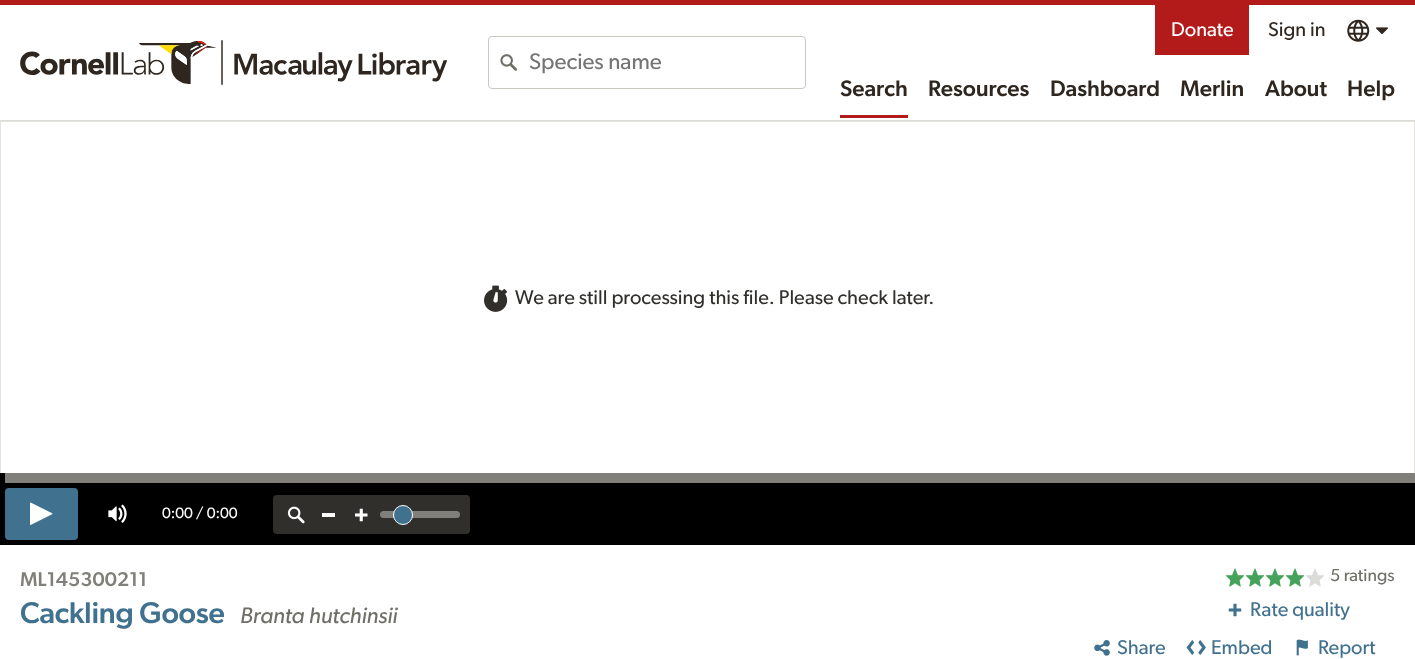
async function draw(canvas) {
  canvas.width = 1415
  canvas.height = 659
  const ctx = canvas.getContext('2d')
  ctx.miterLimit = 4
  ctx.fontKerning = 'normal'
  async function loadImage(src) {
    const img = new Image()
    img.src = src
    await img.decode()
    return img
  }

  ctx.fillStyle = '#fff'
  ctx.fillRect(0, 0, 1415, 659)
  ctx.fillStyle = '#b31b1b'
  ctx.fillRect(0, 0, 1415, 5)
  ctx.fillStyle = '#dbdbd9'
  ctx.fillRect(0, 120, 1415, 1)
  ctx.drawImage(await loadImage('image0.png'), 20, 40, 427, 45)
  ctx.beginPath()
  ctx.roundRect(488.5, 36.5, 317, 52, 3.5)
  ctx.strokeStyle = '#c8c7c0'
  ctx.stroke()
  ctx.drawImage(await loadImage('image1.png'), 500, 54, 18, 17)
  ctx.font = '22.5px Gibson'
  ctx.fillStyle = '#757575'
  ctx.fillText('Species name', 529, 69)
  ctx.fillStyle = '#b31b1b'
  ctx.fillRect(1155, 5, 94, 50)
  ctx.font = '20px Gibson'
  ctx.fillStyle = '#fff'
  ctx.fillText('Donate', 1171, 36)
  ctx.fillStyle = '#2e261f'
  ctx.fillText('Sign in', 1268, 36)
  ctx.drawImage(await loadImage('image2.png'), 1347, 19, 23, 23)
  ctx.drawImage(await loadImage('image3.png'), 1376, 27, 12, 7)
  ctx.fillStyle = '#b31b1b'
  ctx.fillRect(840, 115, 68, 3)
  ctx.font = '500 22.5px Gibson'
  ctx.fillStyle = '#2e261f'
  ctx.fillText('Search', 840, 96)
  ctx.fillText('Resources', 928, 96)
  ctx.fillText('Dashboard', 1050, 96)
  ctx.fillText('Merlin', 1180, 96)
  ctx.fillText('About', 1265, 96)
  ctx.fillText('Help', 1347, 96)
  ctx.fillStyle = '#e5e3dc'
  ctx.fillRect(0, 121, 1415, 1)
  ctx.fillRect(1414, 121, 1, 352)
  ctx.fillRect(0, 121, 1, 352)
  ctx.drawImage(await loadImage('image4.png'), 484, 285, 24, 27)
  ctx.font = '20px Gibson'
  ctx.fillStyle = '#302f2c'
  ctx.fillText('We are still processing this file. Please check later.', 515, 304)
  ctx.fillStyle = '#817f79'
  ctx.fillRect(5, 473, 1410, 10)
  ctx.fillStyle = '#000'
  ctx.fillRect(0, 473, 5, 10)
  ctx.fillRect(0, 483, 1415, 62)
  ctx.fillStyle = '#40718f'
  ctx.beginPath()
  ctx.roundRect(5, 488, 73, 52, 4)
  ctx.fill()
  ctx.drawImage(await loadImage('image5.png'), 30, 502, 23, 23)
  ctx.drawImage(await loadImage('image6.png'), 108, 504, 19, 19)
  ctx.font = '15px Gibson'
  ctx.fillStyle = '#fff'
  ctx.fillText('0:00 / 0:00', 162, 518)
  ctx.fillStyle = '#302f2c'
  ctx.beginPath()
  ctx.roundRect(273, 495, 197, 39, 4)
  ctx.fill()
  ctx.drawImage(await loadImage('image7.png'), 287, 506, 18, 18)
  ctx.fillStyle = '#fff'
  ctx.fillRect(322, 513, 13, 4)
  ctx.drawImage(await loadImage('image8.png'), 355, 508, 13, 14)
  ctx.fillStyle = '#817f79'
  ctx.beginPath()
  ctx.roundRect(380, 511, 80, 7, 3.5)
  ctx.fill()
  ctx.fillStyle = '#40718f'
  ctx.beginPath()
  ctx.arc(403, 515, 9.5, 0, 2 * Math.PI)
  ctx.fill()
  ctx.strokeStyle = '#fff'
  ctx.stroke()
  ctx.letterSpacing = '0.1px'
  ctx.font = '500 20px Gibson'
  ctx.fillStyle = '#817f79'
  ctx.fillText('ML145300211', 20, 586)
  ctx.letterSpacing = '-0.25px'
  ctx.font = '500 30px Gibson'
  ctx.fillStyle = '#40718f'
  ctx.fillText('Cackling Goose', 20, 623)
  ctx.letterSpacing = '0px'
  ctx.font = 'italic 22.5px Gibson'
  ctx.fillStyle = '#6f6e67'
  ctx.fillText('Branta hutchinsii', 240, 623)
  ctx.drawImage(await loadImage('image9.png'), 1225, 568, 20, 19)
  ctx.drawImage(await loadImage('image9.png'), 1245, 568, 20, 19)
  ctx.drawImage(await loadImage('image9.png'), 1265, 568, 20, 19)
  ctx.drawImage(await loadImage('image9.png'), 1285, 568, 20, 19)
  ctx.drawImage(await loadImage('image10.png'), 1306, 568, 18, 19)
  ctx.font = '17.5px Gibson'
  ctx.fillText('5 ratings', 1330, 581)
  ctx.drawImage(await loadImage('image11.png'), 1228, 603, 14, 14)
  ctx.font = '20px Gibson'
  ctx.fillStyle = '#40718f'
  ctx.fillText('Rate quality', 1250, 616)
  ctx.drawImage(await loadImage('image12.png'), 1094, 640, 16, 16)
  ctx.fillText('Share', 1117, 654)
  ctx.drawImage(await loadImage('image13.png'), 1186, 640, 20, 15)
  ctx.fillText('Embed', 1211, 654)
  ctx.drawImage(await loadImage('image14.png'), 1296, 639, 12, 17)
  ctx.fillText('Report', 1318, 654)
}

draw(document.querySelector('canvas'))
